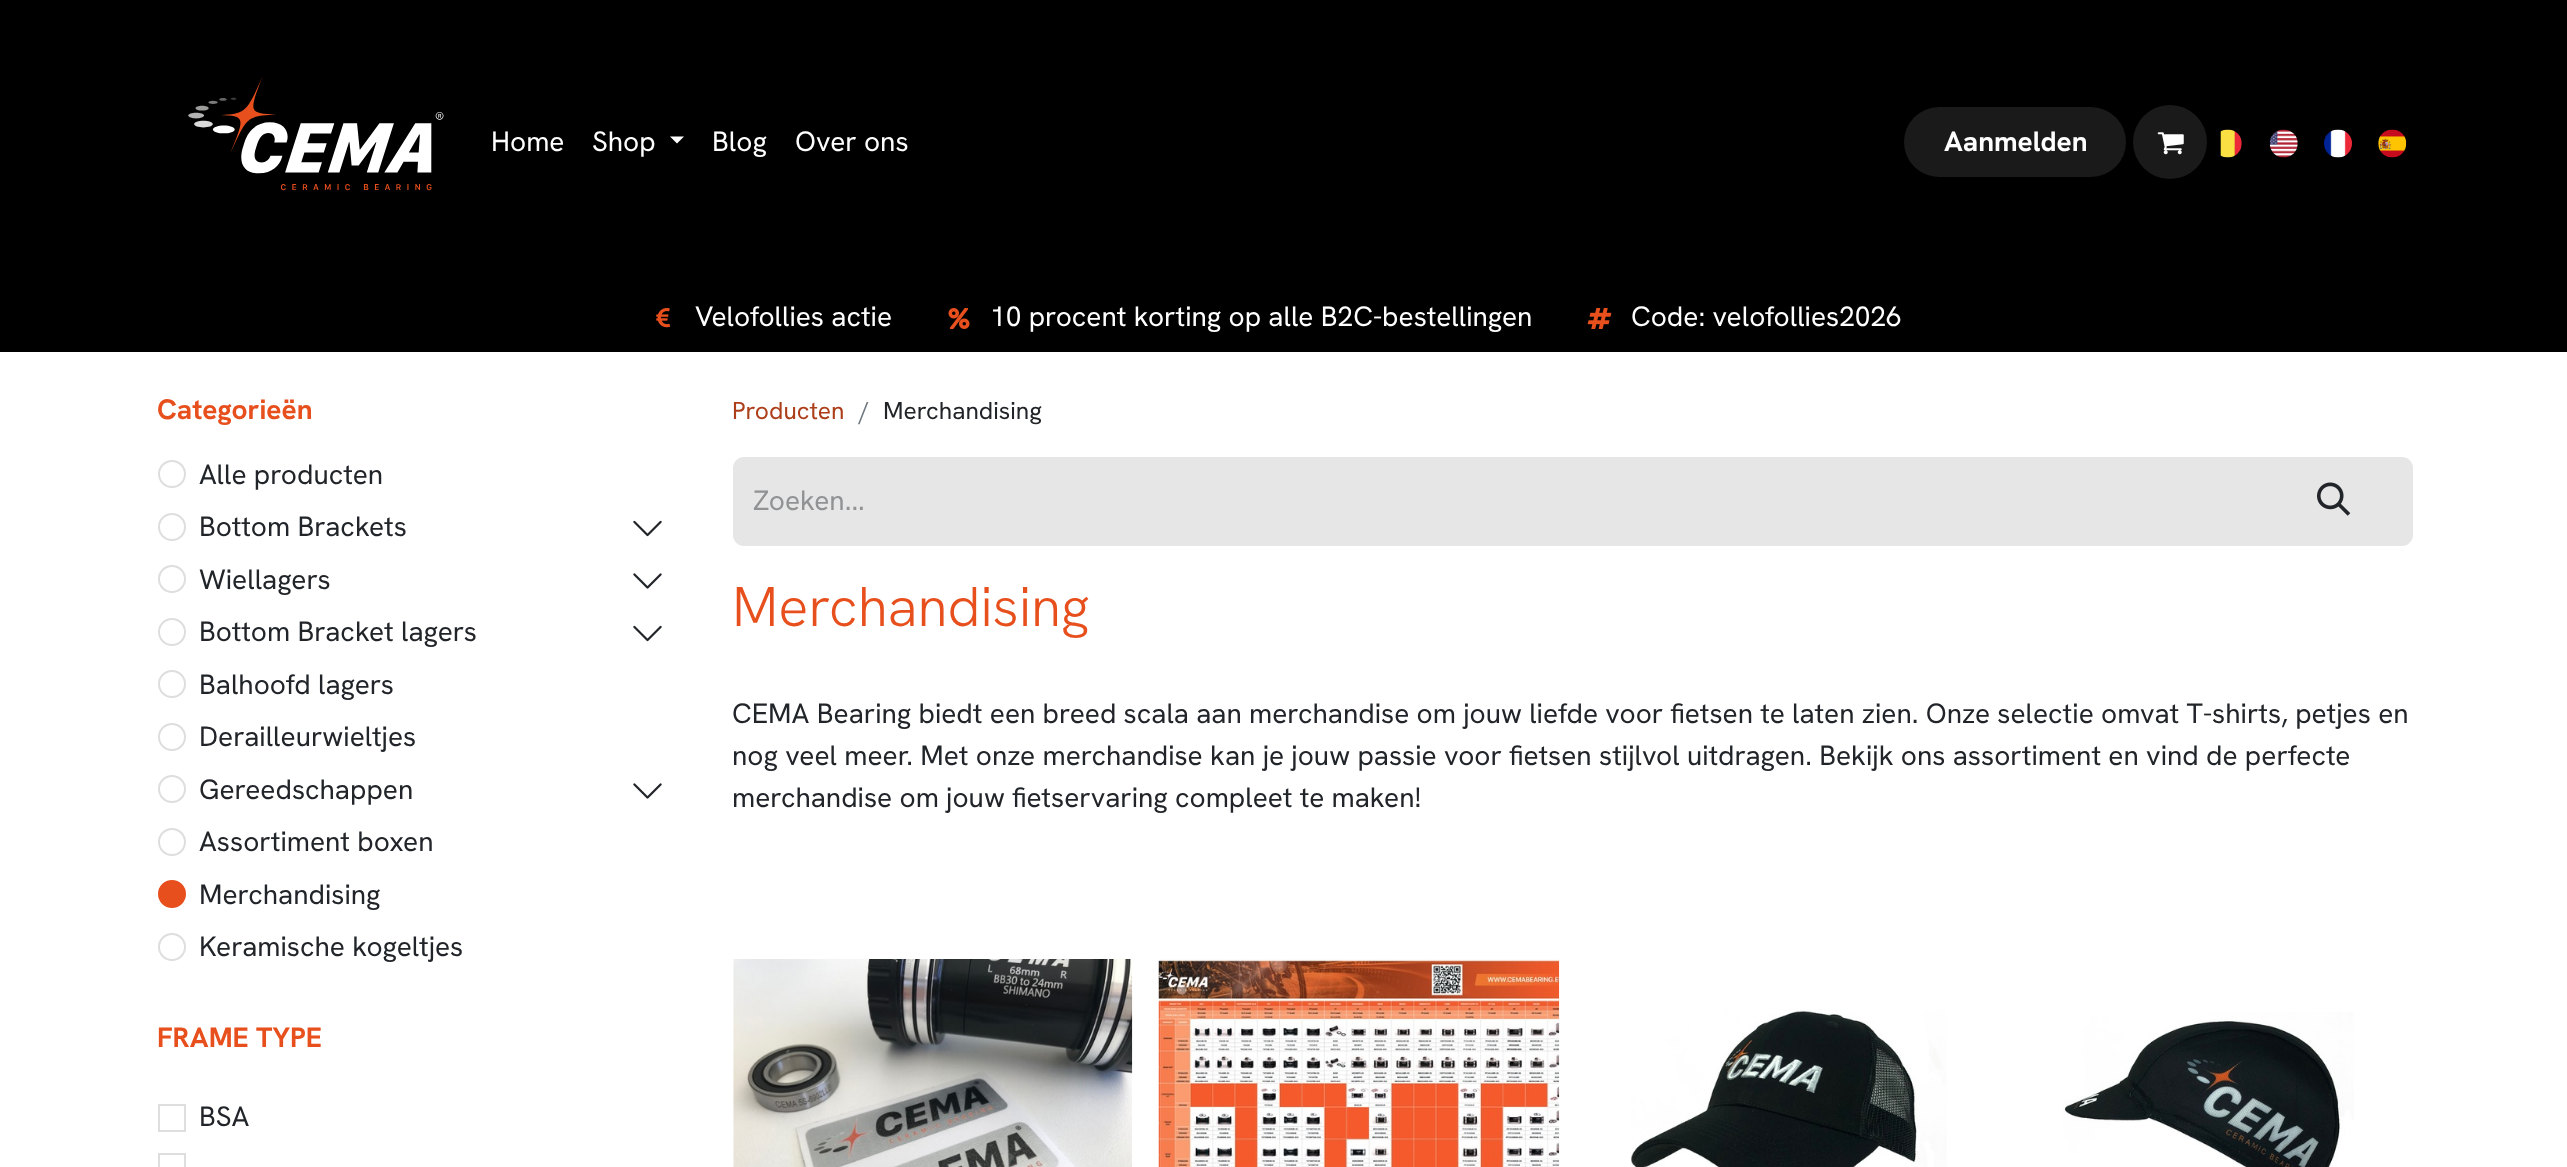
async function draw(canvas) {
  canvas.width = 2567
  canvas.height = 1167
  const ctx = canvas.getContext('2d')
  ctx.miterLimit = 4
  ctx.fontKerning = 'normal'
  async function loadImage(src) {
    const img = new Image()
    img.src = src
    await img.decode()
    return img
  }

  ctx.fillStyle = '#fff'
  ctx.fillRect(0, 0, 2567, 1167)
  ctx.fillStyle = '#000'
  ctx.fillRect(0, 0, 2567, 352)
  ctx.drawImage(await loadImage('image0.png'), 188, 77, 256, 114)
  ctx.font = '28px Hanken Grotesk'
  ctx.fillStyle = '#fff'
  ctx.fillText('Home', 491, 151)
  ctx.fillText('Shop', 592, 151)
  ctx.beginPath()
  ctx.moveTo(670, 136.5)
  ctx.lineTo(684, 136.5)
  ctx.lineTo(677, 143.5)
  ctx.closePath()
  ctx.fill()
  ctx.fillText('Blog', 712, 151)
  ctx.fillText('Over ons', 795, 151)
  ctx.fillStyle = '#1a1a1a'
  ctx.beginPath()
  ctx.roundRect(1904, 107, 222, 70, 35)
  ctx.fill()
  ctx.font = 'bold 28px Hanken Grotesk'
  ctx.fillStyle = '#fff'
  ctx.fillText('Aanmelden', 1944, 151)
  ctx.fillStyle = '#1a1a1a'
  ctx.beginPath()
  ctx.arc(2170, 142, 37, 0, 2 * Math.PI)
  ctx.fill()
  ctx.drawImage(await loadImage('image1.png'), 2157, 132, 27, 23)
  ctx.drawImage(await loadImage('image2.png'), 2220, 129, 22, 29)
  ctx.drawImage(await loadImage('image3.png'), 2269, 129, 29, 29)
  ctx.drawImage(await loadImage('image4.png'), 2324, 129, 28, 29)
  ctx.drawImage(await loadImage('image5.png'), 2378, 129, 29, 29)
  ctx.drawImage(await loadImage('image6.png'), 656, 308, 15, 20)
  ctx.font = '28px Hanken Grotesk'
  ctx.fillStyle = '#fff'
  ctx.fillText('Velofollies actie', 695, 326)
  ctx.drawImage(await loadImage('image7.png'), 948, 308, 22, 21)
  ctx.fillText('10 procent korting op alle B2C-bestellingen', 990, 326)
  ctx.drawImage(await loadImage('image8.png'), 1587, 308, 25, 21)
  ctx.fillText('Code: velofollies2026', 1631, 326)
  ctx.font = 'bold 28px Hanken Grotesk'
  ctx.fillStyle = '#e74f1d'
  ctx.fillText('Categorieën', 157, 419)
  ctx.beginPath()
  ctx.arc(172, 474, 13, 0, 2 * Math.PI)
  ctx.strokeStyle = '#dededf'
  ctx.lineWidth = 2
  ctx.stroke()
  ctx.font = '28px Hanken Grotesk'
  ctx.fillStyle = '#212529'
  ctx.fillText('Alle producten', 199, 484)
  ctx.beginPath()
  ctx.arc(172, 527, 13, 0, 2 * Math.PI)
  ctx.stroke()
  ctx.fillText('Bottom Brackets', 199, 536)
  ctx.drawImage(await loadImage('image9.png'), 633, 520, 29, 17)
  ctx.beginPath()
  ctx.arc(172, 579, 13, 0, 2 * Math.PI)
  ctx.stroke()
  ctx.fillText('Wiellagers', 199, 589)
  ctx.drawImage(await loadImage('image10.png'), 633, 573, 29, 16)
  ctx.beginPath()
  ctx.arc(172, 632, 13, 0, 2 * Math.PI)
  ctx.stroke()
  ctx.fillText('Bottom Bracket lagers', 199, 641)
  ctx.drawImage(await loadImage('image9.png'), 633, 625, 29, 17)
  ctx.beginPath()
  ctx.arc(172, 684, 13, 0, 2 * Math.PI)
  ctx.stroke()
  ctx.fillText('Balhoofd lagers', 199, 694)
  ctx.beginPath()
  ctx.arc(172, 737, 13, 0, 2 * Math.PI)
  ctx.stroke()
  ctx.fillText('Derailleurwieltjes', 199, 746)
  ctx.beginPath()
  ctx.arc(172, 789, 13, 0, 2 * Math.PI)
  ctx.stroke()
  ctx.fillText('Gereedschappen', 199, 799)
  ctx.drawImage(await loadImage('image10.png'), 633, 783, 29, 16)
  ctx.beginPath()
  ctx.arc(172, 842, 13, 0, 2 * Math.PI)
  ctx.stroke()
  ctx.fillText('Assortiment boxen', 199, 851)
  ctx.fillStyle = '#e74f1d'
  ctx.beginPath()
  ctx.arc(172, 894, 13, 0, 2 * Math.PI)
  ctx.fill()
  ctx.strokeStyle = '#e74f1d'
  ctx.stroke()
  ctx.fillStyle = '#212529'
  ctx.fillText('Merchandising', 199, 904)
  ctx.beginPath()
  ctx.arc(172, 947, 13, 0, 2 * Math.PI)
  ctx.strokeStyle = '#dededf'
  ctx.stroke()
  ctx.fillText('Keramische kogeltjes', 199, 956)
  ctx.font = 'bold 28px Hanken Grotesk'
  ctx.fillStyle = '#e74f1d'
  ctx.fillText('FRAME TYPE', 157, 1047)
  ctx.strokeRect(159, 1105, 26, 26)
  ctx.font = '28px Hanken Grotesk'
  ctx.fillStyle = '#212529'
  ctx.fillText('BSA', 199, 1126)
  ctx.strokeRect(159, 1154, 26, 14)
  ctx.font = '24.5px Hanken Grotesk'
  ctx.fillStyle = '#ac3e1a'
  ctx.fillText('Producten', 732, 419)
  ctx.fillStyle = '#6c757d'
  ctx.fillText('/', 859, 419)
  ctx.fillStyle = '#212529'
  ctx.fillText('Merchandising', 883, 419)
  ctx.fillStyle = '#e6e6e6'
  ctx.beginPath()
  ctx.roundRect(733, 457, 1523, 89, [11, 0, 0, 11])
  ctx.fill()
  ctx.font = '28px Hanken Grotesk'
  ctx.fillStyle = '#909294'
  ctx.fillText('Zoeken...', 753, 510)
  ctx.fillStyle = '#e6e6e6'
  ctx.beginPath()
  ctx.roundRect(2255, 458, 157, 87, [0, 10, 10, 0])
  ctx.fill()
  ctx.strokeStyle = '#e6e6e6'
  ctx.stroke()
  ctx.drawImage(await loadImage('image11.png'), 2317, 482, 34, 34)
  ctx.font = '300 56px Hanken Grotesk'
  ctx.fillStyle = '#e74f1d'
  ctx.fillText('Merchandising', 732, 626)
  ctx.font = '28px Hanken Grotesk'
  ctx.fillStyle = '#212529'
  ctx.fillText('CEMA Bearing biedt een breed scala aan merchandise om jouw liefde voor fietsen te laten zien. Onze selectie omvat T-shirts, petjes en', 732, 723)
  ctx.fillText('nog veel meer. Met onze merchandise kan je jouw passie voor fietsen stijlvol uitdragen. Bekijk ons assortiment en vind de perfecte', 732, 765)
  ctx.fillText('merchandise om jouw fietservaring compleet te maken!', 732, 807)
  ctx.drawImage(await loadImage('image12.png'), 733, 959, 400, 208)
  ctx.drawImage(await loadImage('image13.png'), 1158, 959, 402, 208)
  ctx.drawImage(await loadImage('image14.png'), 1631, 1009, 316, 158)
  ctx.drawImage(await loadImage('image15.png'), 2063, 1012, 291, 155)
}

draw(document.querySelector('canvas'))
